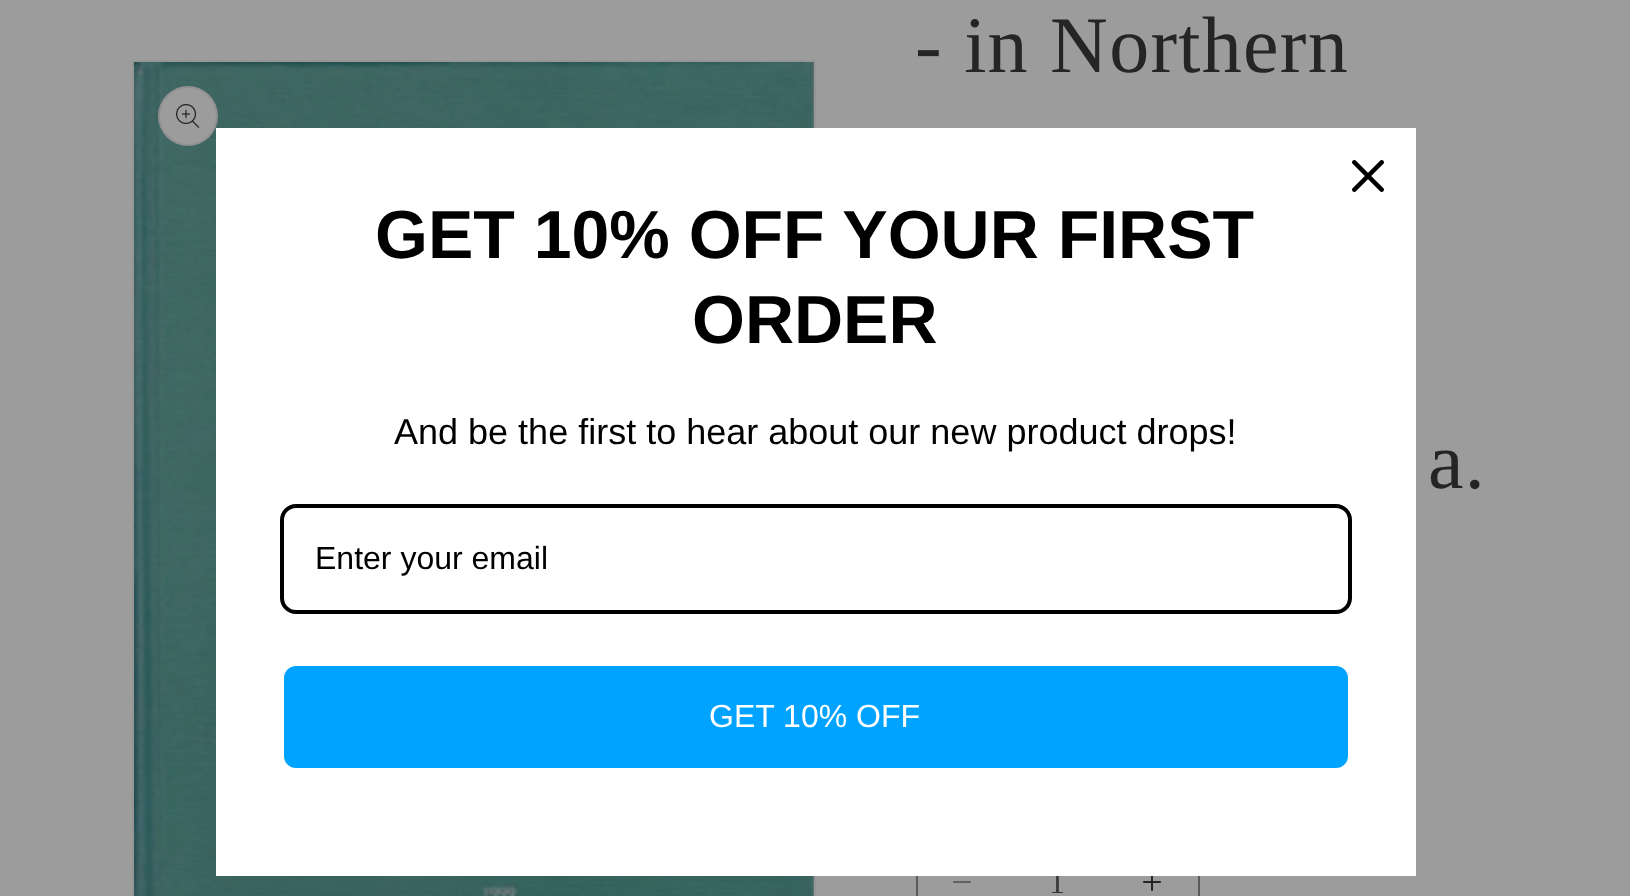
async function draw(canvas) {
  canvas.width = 1630
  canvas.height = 896
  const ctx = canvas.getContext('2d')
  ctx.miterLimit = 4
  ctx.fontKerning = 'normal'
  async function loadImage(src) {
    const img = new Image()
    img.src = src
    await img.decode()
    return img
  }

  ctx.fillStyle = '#9c9c9c'
  ctx.fillRect(0, 0, 1630, 896)
  ctx.strokeStyle = '#969696'
  ctx.lineWidth = 2
  ctx.strokeRect(133, 61, 682, 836)
  ctx.drawImage(await loadImage('image0.png'), 134, 62, 680, 834)
  ctx.beginPath()
  ctx.arc(188, 116, 30, 0, 2 * Math.PI)
  ctx.fill()
  ctx.beginPath()
  ctx.arc(188, 116, 29, 0, 2 * Math.PI)
  ctx.strokeStyle = '#2525251a'
  ctx.stroke()
  ctx.drawImage(await loadImage('image1.png'), 176, 104, 24, 24)
  ctx.letterSpacing = '1.25px'
  ctx.font = '80px Liberation Serif'
  ctx.fillStyle = '#252525'
  ctx.fillText('- in Northern', 915, 72)
  ctx.fillText('a.', 1428, 488)
  ctx.drawImage(await loadImage('image2.png'), 953, 881, 18, 2)
  ctx.drawImage(await loadImage('image3.png'), 1143, 876, 18, 15)
  ctx.strokeStyle = '#5b5b5b'
  ctx.strokeRect(917, 837, 282, 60)
  ctx.letterSpacing = '0px'
  ctx.font = '32px Liberation Serif'
  ctx.fillStyle = '#373737'
  ctx.fillText('1', 1049, 893)
  ctx.fillStyle = '#fff'
  ctx.fillRect(216, 128, 1200, 748)
  ctx.drawImage(await loadImage('image4.png'), 1352, 160, 32, 32)
  ctx.font = 'bold 68px Liberation Sans'
  ctx.fillStyle = '#000'
  ctx.fillText('GET 10% OFF YOUR FIRST', 375, 258)
  ctx.fillText('ORDER', 692, 343)
  ctx.font = '36px Liberation Sans'
  ctx.fillText('And be the first to hear about our new product drops!', 394, 444)
  ctx.beginPath()
  ctx.roundRect(282, 506, 1068, 106, 14)
  ctx.strokeStyle = '#000'
  ctx.lineWidth = 4
  ctx.stroke()
  ctx.font = '32px Liberation Sans'
  ctx.fillText('Enter your email', 315, 569)
  ctx.fillStyle = '#00a3ff'
  ctx.beginPath()
  ctx.roundRect(282, 664, 1068, 106, 14)
  ctx.fill()
  ctx.strokeStyle = '#fff'
  ctx.stroke()
  ctx.fillStyle = '#fff'
  ctx.fillText('GET 10% OFF', 709, 727)
}

draw(document.querySelector('canvas'))
